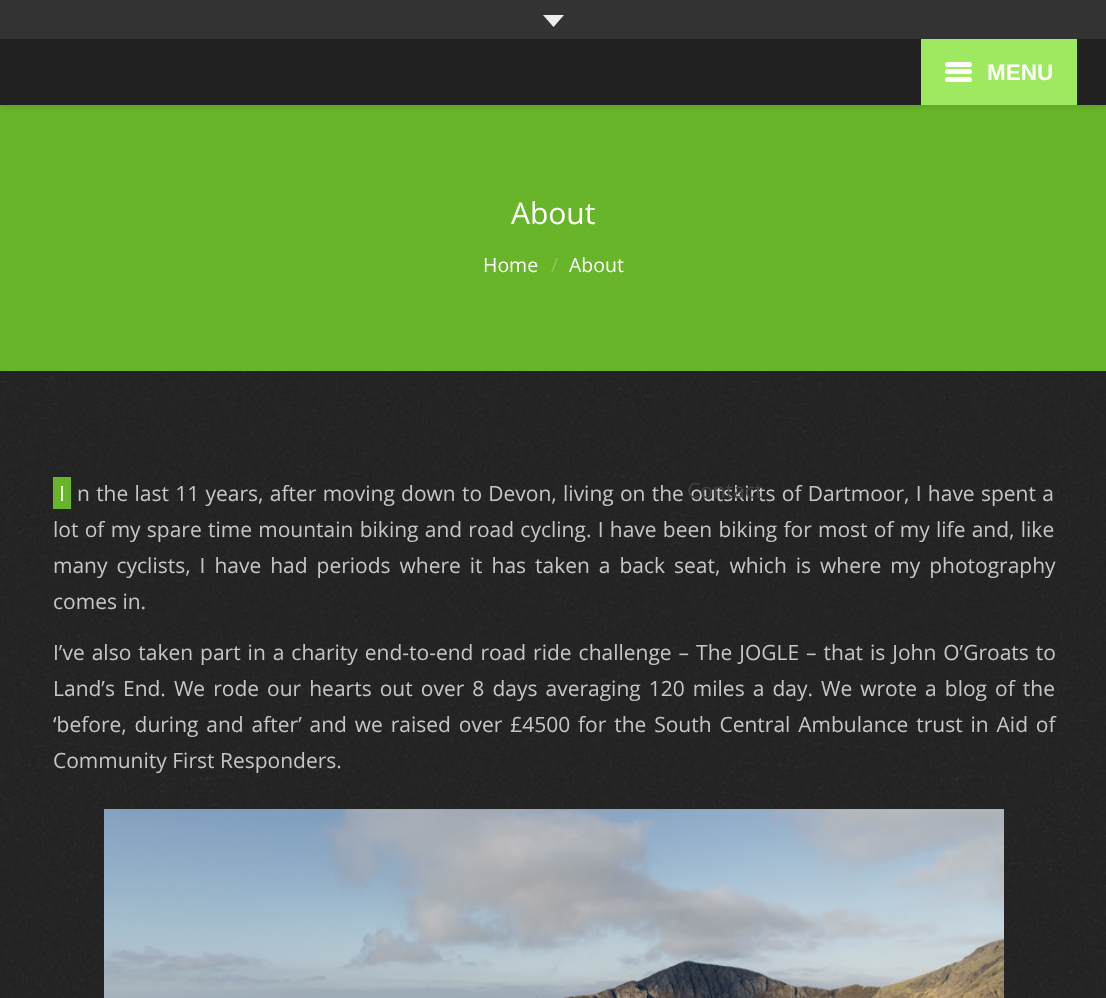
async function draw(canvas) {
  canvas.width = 1106
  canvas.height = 998
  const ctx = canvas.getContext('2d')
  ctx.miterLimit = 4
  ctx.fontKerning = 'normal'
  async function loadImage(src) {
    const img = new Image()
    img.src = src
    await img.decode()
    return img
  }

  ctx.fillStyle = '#fff'
  ctx.fillRect(0, 0, 1106, 998)
  ctx.fillStyle = '#68b529'
  ctx.fillRect(0, 105, 1106, 266)
  ctx.font = '30px Open Sans'
  ctx.fillStyle = '#fff'
  ctx.fillText('About', 511, 224)
  ctx.font = '19.5px Open Sans'
  ctx.fillText('Home', 483, 272)
  ctx.fillStyle = '#8ec85f'
  ctx.fillText('/', 551, 272)
  ctx.fillStyle = '#fff'
  ctx.fillText('About', 569, 272)
  ctx.fillStyle = '#0000001a'
  ctx.filter = 'blur(3px)'
  ctx.beginPath()
  ctx.rect(0, -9, 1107, 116)
  ctx.fill()
  ctx.filter = 'none'
  ctx.fillStyle = '#212121'
  ctx.fillRect(0, 39, 1106, 66)
  ctx.fillStyle = '#333'
  ctx.fillRect(0, 0, 1106, 39)
  ctx.fillStyle = '#ededed'
  ctx.beginPath()
  ctx.moveTo(543, 15)
  ctx.lineTo(564, 15)
  ctx.lineTo(553.5, 27)
  ctx.closePath()
  ctx.fill()
  ctx.fillStyle = '#9ee960'
  ctx.fillRect(921, 39, 156, 66)
  ctx.fillStyle = '#fff'
  ctx.beginPath()
  ctx.roundRect(945, 69, 27, 5, 2.5)
  ctx.fill()
  ctx.beginPath()
  ctx.roundRect(945, 62, 27, 5, 2.5)
  ctx.fill()
  ctx.beginPath()
  ctx.roundRect(945, 77, 27, 5, 2.5)
  ctx.fill()
  ctx.font = 'bold 22.5px Liberation Sans'
  ctx.fillText('MENU', 987, 80)
  ctx.drawImage(await loadImage('image0.png'), 0, 371, 1106, 627)
  ctx.wordSpacing = '0.8px'
  ctx.font = '21px Open Sans'
  ctx.fillStyle = '#c6c6c6'
  ctx.fillText('n the last 11 years, after moving down to Devon, living on the outskirts of Dartmoor, I have spent a', 77, 501)
  ctx.wordSpacing = '0px'
  ctx.fillStyle = '#414141'
  ctx.fillText('Contact', 687, 498)
  ctx.fillStyle = '#68b529'
  ctx.fillRect(53, 477, 18, 32)
  ctx.fillStyle = '#fff'
  ctx.fillText('I', 59, 501)
  ctx.wordSpacing = '0.8px'
  ctx.fillStyle = '#c6c6c6'
  ctx.fillText('lot of my spare time mountain biking and road cycling. I have been biking for most of my life and, like', 53, 537)
  ctx.wordSpacing = '3.5px'
  ctx.fillText('many cyclists, I have had periods where it has taken a back seat, which is where my photography', 53, 573)
  ctx.wordSpacing = '0px'
  ctx.fillText('comes in.', 53, 609)
  ctx.wordSpacing = '1.5px'
  ctx.fillText('I’ve also taken part in a charity end-to-end road ride challenge – The JOGLE – that is John O’Groats to', 53, 660)
  ctx.wordSpacing = '2.6px'
  ctx.fillText('Land’s End. We rode our hearts out over 8 days averaging 120 miles a day. We wrote a blog of the', 53, 696)
  ctx.wordSpacing = '2.4px'
  ctx.fillText('‘before, during and after’ and we raised over £4500 for the South Central Ambulance trust in Aid of', 53, 732)
  ctx.wordSpacing = '0px'
  ctx.fillText('Community First Responders.', 53, 768)
  ctx.drawImage(await loadImage('image1.png'), 104, 809, 900, 189)
}

draw(document.querySelector('canvas'))
